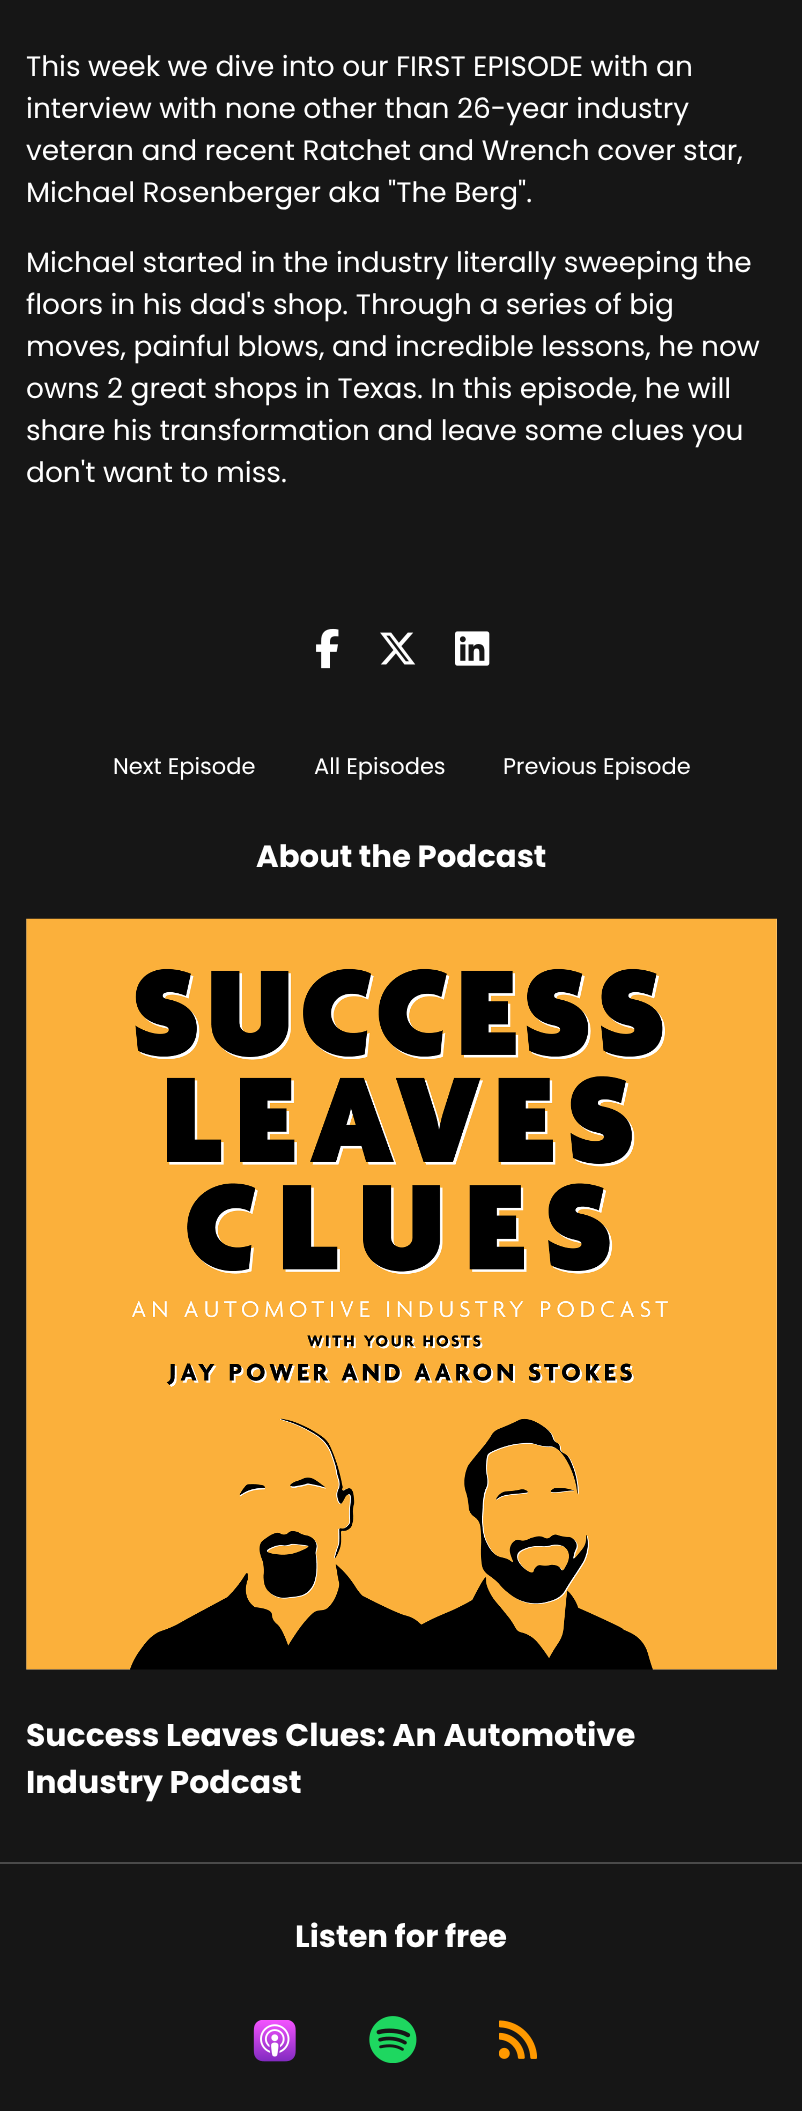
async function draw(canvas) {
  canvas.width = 802
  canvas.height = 2111
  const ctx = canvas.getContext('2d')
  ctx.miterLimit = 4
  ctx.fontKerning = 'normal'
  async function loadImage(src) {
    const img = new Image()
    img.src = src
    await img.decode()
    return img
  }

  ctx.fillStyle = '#161616'
  ctx.fillRect(0, 0, 802, 2111)
  ctx.font = '28px Poppins'
  ctx.fillStyle = '#fff'
  ctx.fillText('This week we dive into our FIRST EPISODE with an', 26, 76)
  ctx.fillText('interview with none other than 26-year industry', 26, 118)
  ctx.fillText('veteran and recent Ratchet and Wrench cover star,', 26, 160)
  ctx.fillText('Michael Rosenberger aka "The Berg".', 26, 202)
  ctx.fillText('Michael started in the industry literally sweeping the', 26, 272)
  ctx.fillText('floors in his dad\'s shop. Through a series of big', 26, 314)
  ctx.fillText('moves, painful blows, and incredible lessons, he now', 26, 356)
  ctx.fillText('owns 2 great shops in Texas. In this episode, he will', 26, 398)
  ctx.fillText('share his transformation and leave some clues you', 26, 440)
  ctx.fillText('don\'t want to miss.', 26, 482)
  ctx.drawImage(await loadImage('image0.png'), 316, 628, 23, 41)
  ctx.drawImage(await loadImage('image1.png'), 380, 632, 36, 33)
  ctx.drawImage(await loadImage('image2.png'), 455, 631, 35, 35)
  ctx.font = '22.5px Poppins'
  ctx.fillText('Next Episode', 113, 774)
  ctx.fillText('All Episodes', 314, 774)
  ctx.fillText('Previous Episode', 503, 774)
  ctx.fillStyle = '#4a4a4a'
  ctx.fillRect(0, 1862, 802, 2)
  ctx.font = 'bold 30.75px Poppins'
  ctx.fillStyle = '#fff'
  ctx.fillText('About the Podcast', 256, 867)
  ctx.drawImage(await loadImage('image3.png'), 26, 918, 751, 752)
  ctx.font = 'bold 31.5px Poppins'
  ctx.fillText('Success Leaves Clues: An Automotive', 26, 1746)
  ctx.fillText('Industry Podcast', 26, 1793)
  ctx.font = 'bold 30.75px Poppins'
  ctx.fillText('Listen for free', 295, 1947)
  ctx.drawImage(await loadImage('image4.png'), 253, 2020, 43, 42)
  ctx.drawImage(await loadImage('image5.png'), 369, 2016, 48, 47)
  ctx.drawImage(await loadImage('image6.png'), 499, 2020, 38, 39)
}

draw(document.querySelector('canvas'))
